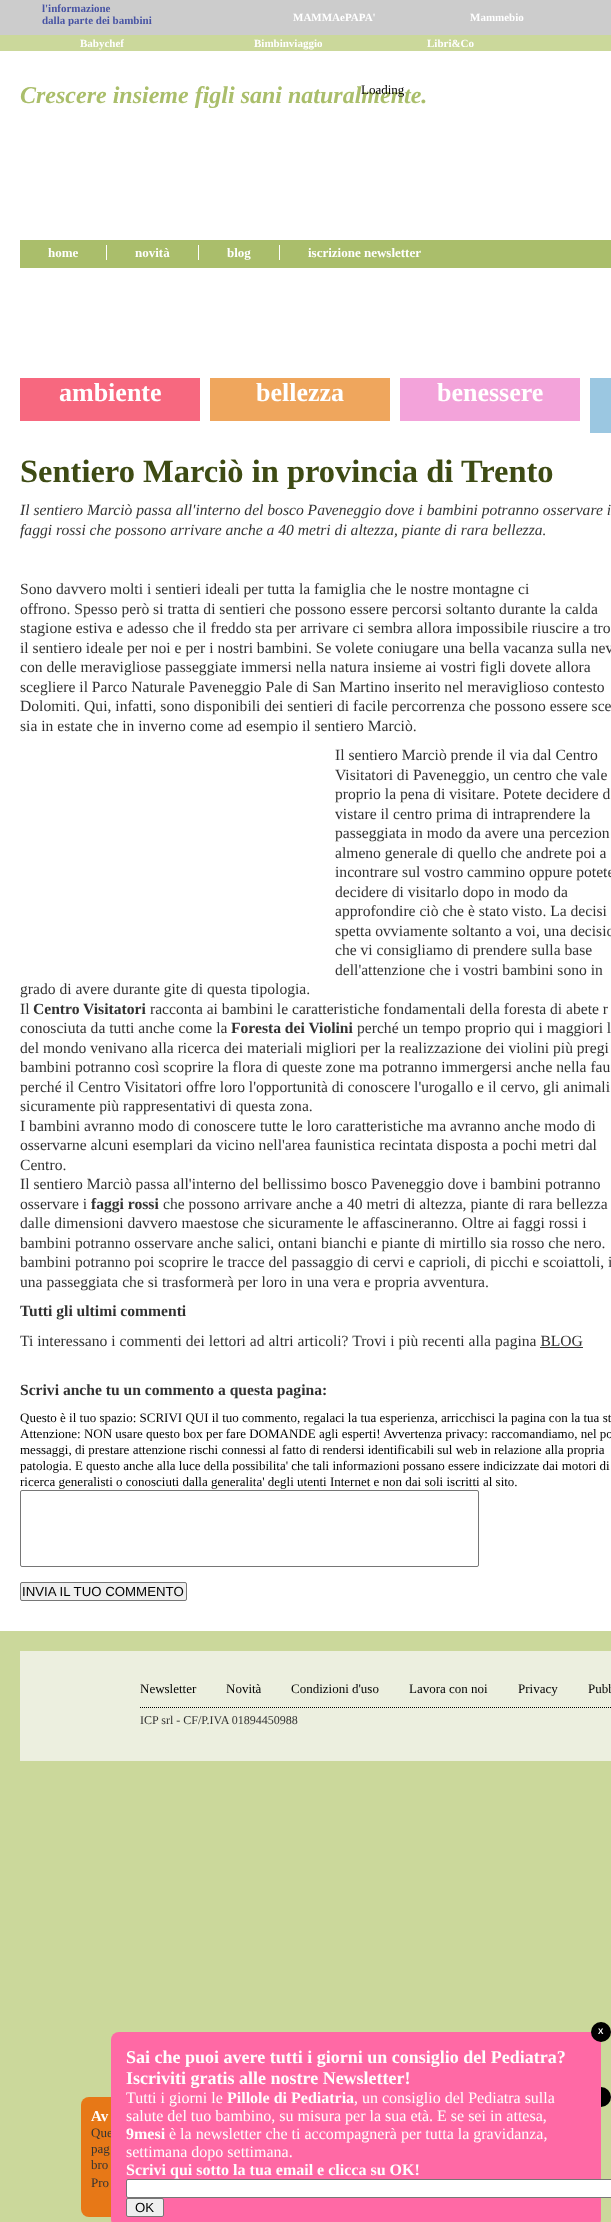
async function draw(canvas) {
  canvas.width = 611
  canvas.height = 2222
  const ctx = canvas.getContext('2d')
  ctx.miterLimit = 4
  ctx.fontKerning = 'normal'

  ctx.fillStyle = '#cbd89b'
  ctx.fillRect(0, 0, 611, 2222)
  ctx.fillStyle = '#ccc'
  ctx.fillRect(0, 0, 611, 35)
  ctx.font = 'bold 11px Liberation Serif'
  ctx.fillStyle = '#4854a4'
  ctx.fillText('l\'informazione', 42, 12)
  ctx.save()
  ctx.beginPath()
  ctx.rect(42, 2, 110, 24)
  ctx.clip()
  ctx.fillText('dalla parte dei bambini', 42, 24)
  ctx.restore()
  ctx.fillStyle = '#fff'
  ctx.fillText('MAMMAePAPA\'', 293, 21)
  ctx.fillText('Mammebio', 470, 21)
  ctx.fillText('Babychef', 80, 47)
  ctx.fillText('Bimbinviaggio', 254, 47)
  ctx.fillText('Libri&Co', 427, 47)
  ctx.fillRect(0, 51, 611, 1580)
  ctx.font = 'italic bold 24px Liberation Serif'
  ctx.fillStyle = '#aabe6b'
  ctx.fillText('Crescere insieme figli sani naturalmente.', 20, 103)
  ctx.font = '13px Liberation Serif'
  ctx.fillStyle = '#000'
  ctx.fillText('Loading', 361, 94)
  ctx.fillStyle = '#aabe6b'
  ctx.fillRect(20, 240, 591, 28)
  ctx.font = 'bold 13px Liberation Serif'
  ctx.fillStyle = '#fff'
  ctx.fillText('home', 48, 257)
  ctx.fillText('novità', 135, 257)
  ctx.fillRect(106, 245, 1, 15)
  ctx.fillText('blog', 227, 257)
  ctx.fillRect(198, 245, 1, 15)
  ctx.fillText('iscrizione newsletter', 308, 257)
  ctx.fillRect(279, 245, 1, 15)
  ctx.fillStyle = '#f7687f'
  ctx.fillRect(20, 378, 180, 43)
  ctx.font = 'bold 26px Liberation Serif'
  ctx.fillStyle = '#fff'
  ctx.fillText('ambiente', 59, 401)
  ctx.fillStyle = '#efa65d'
  ctx.fillRect(210, 378, 180, 43)
  ctx.fillStyle = '#fff'
  ctx.fillText('bellezza', 256, 401)
  ctx.fillStyle = '#f3a3da'
  ctx.fillRect(400, 378, 180, 43)
  ctx.fillStyle = '#fff'
  ctx.fillText('benessere', 437, 401)
  ctx.fillStyle = '#9bc7e1'
  ctx.fillRect(590, 378, 21, 55)
  ctx.font = 'bold 32.5px Liberation Serif'
  ctx.fillStyle = '#3e4b14'
  ctx.fillText('Sentiero Marciò in provincia di Trento', 20, 482)
  ctx.font = 'italic 15.6px Liberation Serif'
  ctx.fillStyle = '#333'
  ctx.fillText('Il sentiero Marciò passa all\'interno del bosco Paveneggio dove i bambini potranno osservare i', 20, 515)
  ctx.fillText('faggi rossi che possono arrivare anche a 40 metri di altezza, piante di rara bellezza.', 20, 535)
  ctx.font = '15.6px Liberation Serif'
  ctx.fillText('Sono davvero molti i sentieri ideali per tutta la famiglia che le nostre montagne ci', 20, 594)
  ctx.fillText('offrono. Spesso però si tratta di sentieri che possono essere percorsi soltanto durante la calda', 20, 614)
  ctx.fillText('stagione estiva e adesso che il freddo sta per arrivare ci sembra allora impossibile riuscire a tro', 20, 633)
  ctx.fillText('il sentiero ideale per noi e per i nostri bambini. Se volete coniugare una bella vacanza sulla nev', 20, 653)
  ctx.fillText('con delle meravigliose passeggiate immersi nella natura insieme ai vostri figli dovete allora', 20, 672)
  ctx.fillText('scegliere il Parco Naturale Paveneggio Pale di San Martino inserito nel meraviglioso contesto', 20, 692)
  ctx.fillText('Dolomiti. Qui, infatti, sono disponibili dei sentieri di facile percorrenza che possono essere sce', 20, 711)
  ctx.fillText('sia in estate che in inverno come ad esempio il sentiero Marciò.', 20, 731)
  ctx.fillText('Il sentiero Marciò prende il via dal Centro', 335, 760)
  ctx.fillText('Visitatori di Paveneggio, un centro che vale', 335, 780)
  ctx.fillText('proprio la pena di visitare. Potete decidere d', 335, 799)
  ctx.fillText('vistare il centro prima di intraprendere la', 335, 819)
  ctx.fillText('passeggiata in modo da avere una percezion', 335, 838)
  ctx.fillText('almeno generale di quello che andrete poi a', 335, 858)
  ctx.fillText('incontrare sul vostro cammino oppure potete', 335, 877)
  ctx.fillText('decidere di visitarlo dopo in modo da', 335, 897)
  ctx.fillText('approfondire ciò che è stato visto. La decisi', 335, 916)
  ctx.fillText('spetta ovviamente soltanto a voi, una decisio', 335, 936)
  ctx.fillText('che vi consigliamo di prendere sulla base', 335, 955)
  ctx.fillText('dell\'attenzione che i vostri bambini sono in', 335, 975)
  ctx.fillText('grado di avere durante gite di questa tipologia.', 20, 994)
  ctx.fillText('Il', 20, 1014)
  ctx.font = 'bold 15.6px Liberation Serif'
  ctx.fillText('Centro Visitatori', 33, 1014)
  ctx.font = '15.6px Liberation Serif'
  ctx.fillText('racconta ai bambini le caratteristiche fondamentali della foresta di abete r', 150, 1014)
  ctx.fillText('conosciuta da tutti anche come la', 20, 1033)
  ctx.font = 'bold 15.6px Liberation Serif'
  ctx.fillText('Foresta dei Violini', 231, 1033)
  ctx.font = '15.6px Liberation Serif'
  ctx.fillText('perché un tempo proprio qui i maggiori l', 357, 1033)
  ctx.fillText('del mondo venivano alla ricerca dei materiali migliori per la realizzazione dei violini più pregi', 20, 1053)
  ctx.fillText('bambini potranno così scoprire la flora di queste zone ma potranno immergersi anche nella fau', 20, 1072)
  ctx.fillText('perché il Centro Visitatori offre loro l\'opportunità di conoscere l\'urogallo e il cervo, gli animali', 20, 1092)
  ctx.fillText('sicuramente più rappresentativi di questa zona.', 20, 1111)
  ctx.fillText('I bambini avranno modo di conoscere tutte le loro caratteristiche ma avranno anche modo di', 20, 1131)
  ctx.fillText('osservarne alcuni esemplari da vicino nell\'area faunistica recintata disposta a pochi metri dal', 20, 1150)
  ctx.fillText('Centro.', 20, 1170)
  ctx.fillText('Il sentiero Marciò passa all\'interno del bellissimo bosco Paveneggio dove i bambini potranno', 20, 1189)
  ctx.fillText('osservare i', 20, 1209)
  ctx.font = 'bold 15.6px Liberation Serif'
  ctx.fillText('faggi rossi', 91, 1209)
  ctx.font = '15.6px Liberation Serif'
  ctx.fillText('che possono arrivare anche a 40 metri di altezza, piante di rara bellezza', 163, 1209)
  ctx.fillText('dalle dimensioni davvero maestose che sicuramente le affascineranno. Oltre ai faggi rossi i', 20, 1228)
  ctx.fillText('bambini potranno osservare anche salici, ontani bianchi e piante di mirtillo sia rosso che nero.', 20, 1248)
  ctx.fillText('bambini potranno poi scoprire le tracce del passaggio di cervi e caprioli, di picchi e scoiattoli, i', 20, 1267)
  ctx.fillText('una passeggiata che si trasformerà per loro in una vera e propria avventura.', 20, 1287)
  ctx.font = 'bold 15.6px Liberation Serif'
  ctx.fillText('Tutti gli ultimi commenti', 20, 1316)
  ctx.font = '15.6px Liberation Serif'
  ctx.fillText('Ti interessano i commenti dei lettori ad altri articoli? Trovi i più recenti alla pagina BLOG', 20, 1346)
  ctx.fillRect(540, 1347, 43, 1)
  ctx.font = 'bold 15.6px Liberation Serif'
  ctx.fillText('Scrivi anche tu un commento a questa pagina:', 20, 1395)
  ctx.font = '13px Liberation Serif'
  ctx.fillStyle = '#000'
  ctx.fillText('Questo è il tuo spazio: SCRIVI QUI il tuo commento, regalaci la tua esperienza, arricchisci la pagina con la tua st', 20, 1422)
  ctx.fillText('Attenzione: NON usare questo box per fare DOMANDE agli esperti! Avvertenza privacy: raccomandiamo, nel po', 20, 1438)
  ctx.fillText('messaggi, di prestare attenzione rischi connessi al fatto di rendersi identificabili sul web in relazione alla propria', 20, 1454)
  ctx.fillText('patologia. E questo anche alla luce della possibilita\' che tali informazioni possano essere indicizzate dai motori di', 20, 1470)
  ctx.fillText('ricerca generalisti o conosciuti dalla generalita\' degli utenti Internet e non dai soli iscritti al sito.', 20, 1486)
  ctx.beginPath()
  ctx.roundRect(20.5, 1490.5, 458, 76, 1.5)
  ctx.strokeStyle = '#767676'
  ctx.stroke()
  ctx.fillStyle = '#efefef'
  ctx.beginPath()
  ctx.roundRect(20.5, 1582.5, 166, 18, 1.5)
  ctx.fill()
  ctx.stroke()
  ctx.font = '13.25px Liberation Sans'
  ctx.fillStyle = '#000'
  ctx.fillText('INVIA IL TUO COMMENTO', 22, 1596)
  ctx.fillStyle = '#ecefdf'
  ctx.fillRect(20, 1651, 591, 110)
  ctx.beginPath()
  ctx.moveTo(140, 1707.5)
  ctx.lineTo(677, 1707.5)
  ctx.strokeStyle = '#000'
  ctx.setLineDash([1, 1])
  ctx.stroke()
  ctx.font = '13px Liberation Serif'
  ctx.fillStyle = '#000'
  ctx.fillText('Newsletter', 140, 1693)
  ctx.fillText('Novità', 226, 1693)
  ctx.fillText('Condizioni d\'uso', 291, 1693)
  ctx.fillText('Lavora con noi', 409, 1693)
  ctx.fillText('Privacy', 518, 1693)
  ctx.fillText('Pubb', 588, 1693)
  ctx.font = '12px Liberation Serif'
  ctx.fillStyle = '#333'
  ctx.fillText('ICP srl - CF/P.IVA 01894450988', 140, 1724)
  ctx.fillStyle = '#e77817'
  ctx.beginPath()
  ctx.roundRect(81, 2097, 520, 120, 8)
  ctx.fill()
  ctx.fillStyle = '#000'
  ctx.beginPath()
  ctx.arc(601, 2097, 10, 0, 2 * Math.PI)
  ctx.fill()
  ctx.font = 'bold 15px Liberation Serif'
  ctx.fillStyle = '#fff'
  ctx.fillText('Av', 91, 2121)
  ctx.font = '13px Liberation Serif'
  ctx.fillStyle = '#333'
  ctx.fillText('Que', 91, 2137)
  ctx.fillText('pag', 91, 2153)
  ctx.fillText('bro', 91, 2169)
  ctx.fillText('Pro', 91, 2187)
  ctx.fillStyle = '#ff69a5'
  ctx.beginPath()
  ctx.roundRect(111, 2032, 490, 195, 8)
  ctx.fill()
  ctx.fillStyle = '#000'
  ctx.beginPath()
  ctx.arc(601, 2032, 10, 0, 2 * Math.PI)
  ctx.fill()
  ctx.font = 'bold 8px Liberation Sans'
  ctx.fillStyle = '#fff'
  ctx.fillText('X', 598, 2034)
  ctx.font = 'bold 18px Liberation Serif'
  ctx.fillText('Sai che puoi avere tutti i giorni un consiglio del Pediatra?', 126, 2063)
  ctx.fillText('Iscriviti gratis alle nostre Newsletter!', 126, 2084)
  ctx.font = '16px Liberation Serif'
  ctx.fillText('Tutti i giorni le', 126, 2103)
  ctx.font = 'bold 16px Liberation Serif'
  ctx.fillText('Pillole di Pediatria', 227, 2103)
  ctx.font = '16px Liberation Serif'
  ctx.fillText(', un consiglio del Pediatra sulla', 354, 2103)
  ctx.fillText('salute del tuo bambino, su misura per la sua età. E se sei in attesa,', 126, 2121)
  ctx.font = 'bold 16px Liberation Serif'
  ctx.fillText('9mesi', 126, 2139)
  ctx.font = '16px Liberation Serif'
  ctx.fillText('è la newsletter che ti accompagnerà per tutta la gravidanza,', 169, 2139)
  ctx.fillText('settimana dopo settimana.', 126, 2157)
  ctx.font = 'bold 16px Liberation Serif'
  ctx.fillText('Scrivi qui sotto la tua email e clicca su OK!', 126, 2175)
  ctx.beginPath()
  ctx.roundRect(126.5, 2179.5, 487, 18, 1.5)
  ctx.fill()
  ctx.strokeStyle = '#767676'
  ctx.setLineDash([])
  ctx.stroke()
  ctx.fillStyle = '#efefef'
  ctx.beginPath()
  ctx.roundRect(126.5, 2198.5, 37, 18, 1.5)
  ctx.fill()
  ctx.stroke()
  ctx.font = '13.25px Liberation Sans'
  ctx.fillStyle = '#000'
  ctx.fillText('OK', 135, 2212)
}

draw(document.querySelector('canvas'))
